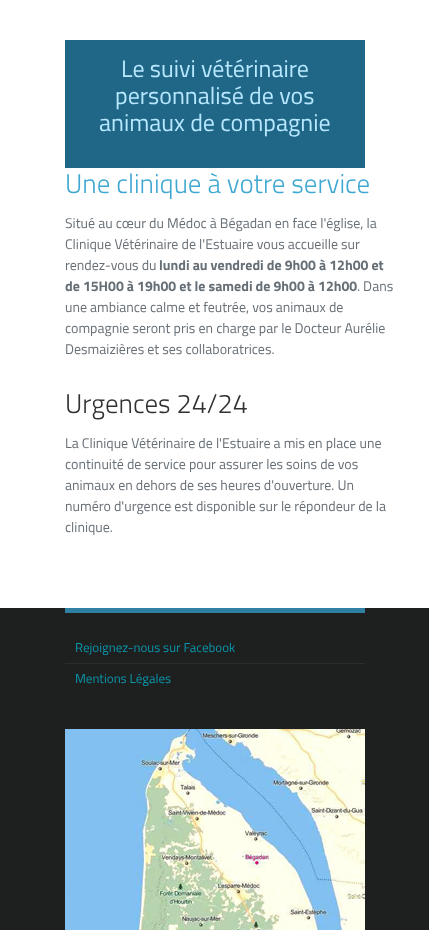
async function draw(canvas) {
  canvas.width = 429
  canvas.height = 930
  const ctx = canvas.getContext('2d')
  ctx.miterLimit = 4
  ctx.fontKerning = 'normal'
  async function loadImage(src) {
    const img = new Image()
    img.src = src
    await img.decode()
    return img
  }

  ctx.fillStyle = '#fff'
  ctx.fillRect(0, 0, 429, 930)
  ctx.fillStyle = '#1f6687'
  ctx.fillRect(65, 40, 300, 128)
  ctx.font = '24px Titillium Web'
  ctx.fillStyle = '#b7e8ff'
  ctx.fillText('Le suivi vétérinaire', 121, 77)
  ctx.fillText('personnalisé de vos', 115, 104)
  ctx.fillText('animaux de compagnie', 99, 131)
  ctx.font = '300 27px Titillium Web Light'
  ctx.fillStyle = '#3fa8d2'
  ctx.fillText('Une clinique à votre service', 65, 193)
  ctx.font = '14px Titillium Web'
  ctx.fillStyle = '#676f76'
  ctx.fillText('Situé au cœur du Médoc à Bégadan en face l\'église, la', 65, 228)
  ctx.fillText('Clinique Vétérinaire de l\'Estuaire vous accueille sur', 65, 249)
  ctx.fillText('rendez-vous du', 65, 270)
  ctx.font = 'bold 14px Titillium Web'
  ctx.fillText('lundi au vendredi de 9h00 à 12h00 et', 159, 270)
  ctx.fillText('de 15H00 à 19h00 et le samedi de 9h00 à 12h00', 65, 291)
  ctx.font = '14px Titillium Web'
  ctx.fillText('. Dans', 357, 291)
  ctx.fillText('une ambiance calme et feutrée, vos animaux de', 65, 312)
  ctx.fillText('compagnie seront pris en charge par le Docteur Aurélie', 65, 333)
  ctx.fillText('Desmaizières et ses collaboratrices.', 65, 354)
  ctx.font = '300 27px Titillium Web Light'
  ctx.fillStyle = '#313131'
  ctx.fillText('Urgences 24/24', 65, 413)
  ctx.font = '14px Titillium Web'
  ctx.fillStyle = '#676f76'
  ctx.fillText('La Clinique Vétérinaire de l\'Estuaire a mis en place une', 65, 448)
  ctx.fillText('continuité de service pour assurer les soins de vos', 65, 469)
  ctx.fillText('animaux en dehors de ses heures d\'ouverture. Un', 65, 490)
  ctx.fillText('numéro d\'urgence est disponible sur le répondeur de la', 65, 511)
  ctx.fillText('clinique.', 65, 532)
  ctx.fillStyle = '#1e1f1f'
  ctx.fillRect(0, 608, 429, 322)
  ctx.fillStyle = '#2f80a2'
  ctx.fillRect(65, 608, 300, 5)
  ctx.fillStyle = '#2c2c2c'
  ctx.fillRect(65, 663, 300, 1)
  ctx.font = '13px Titillium Web'
  ctx.fillStyle = '#0b97ac'
  ctx.fillText('Rejoignez-nous sur Facebook', 75, 652)
  ctx.fillText('Mentions Légales', 75, 683)
  ctx.drawImage(await loadImage('image0.png'), 65, 729, 300, 201)
}

draw(document.querySelector('canvas'))
